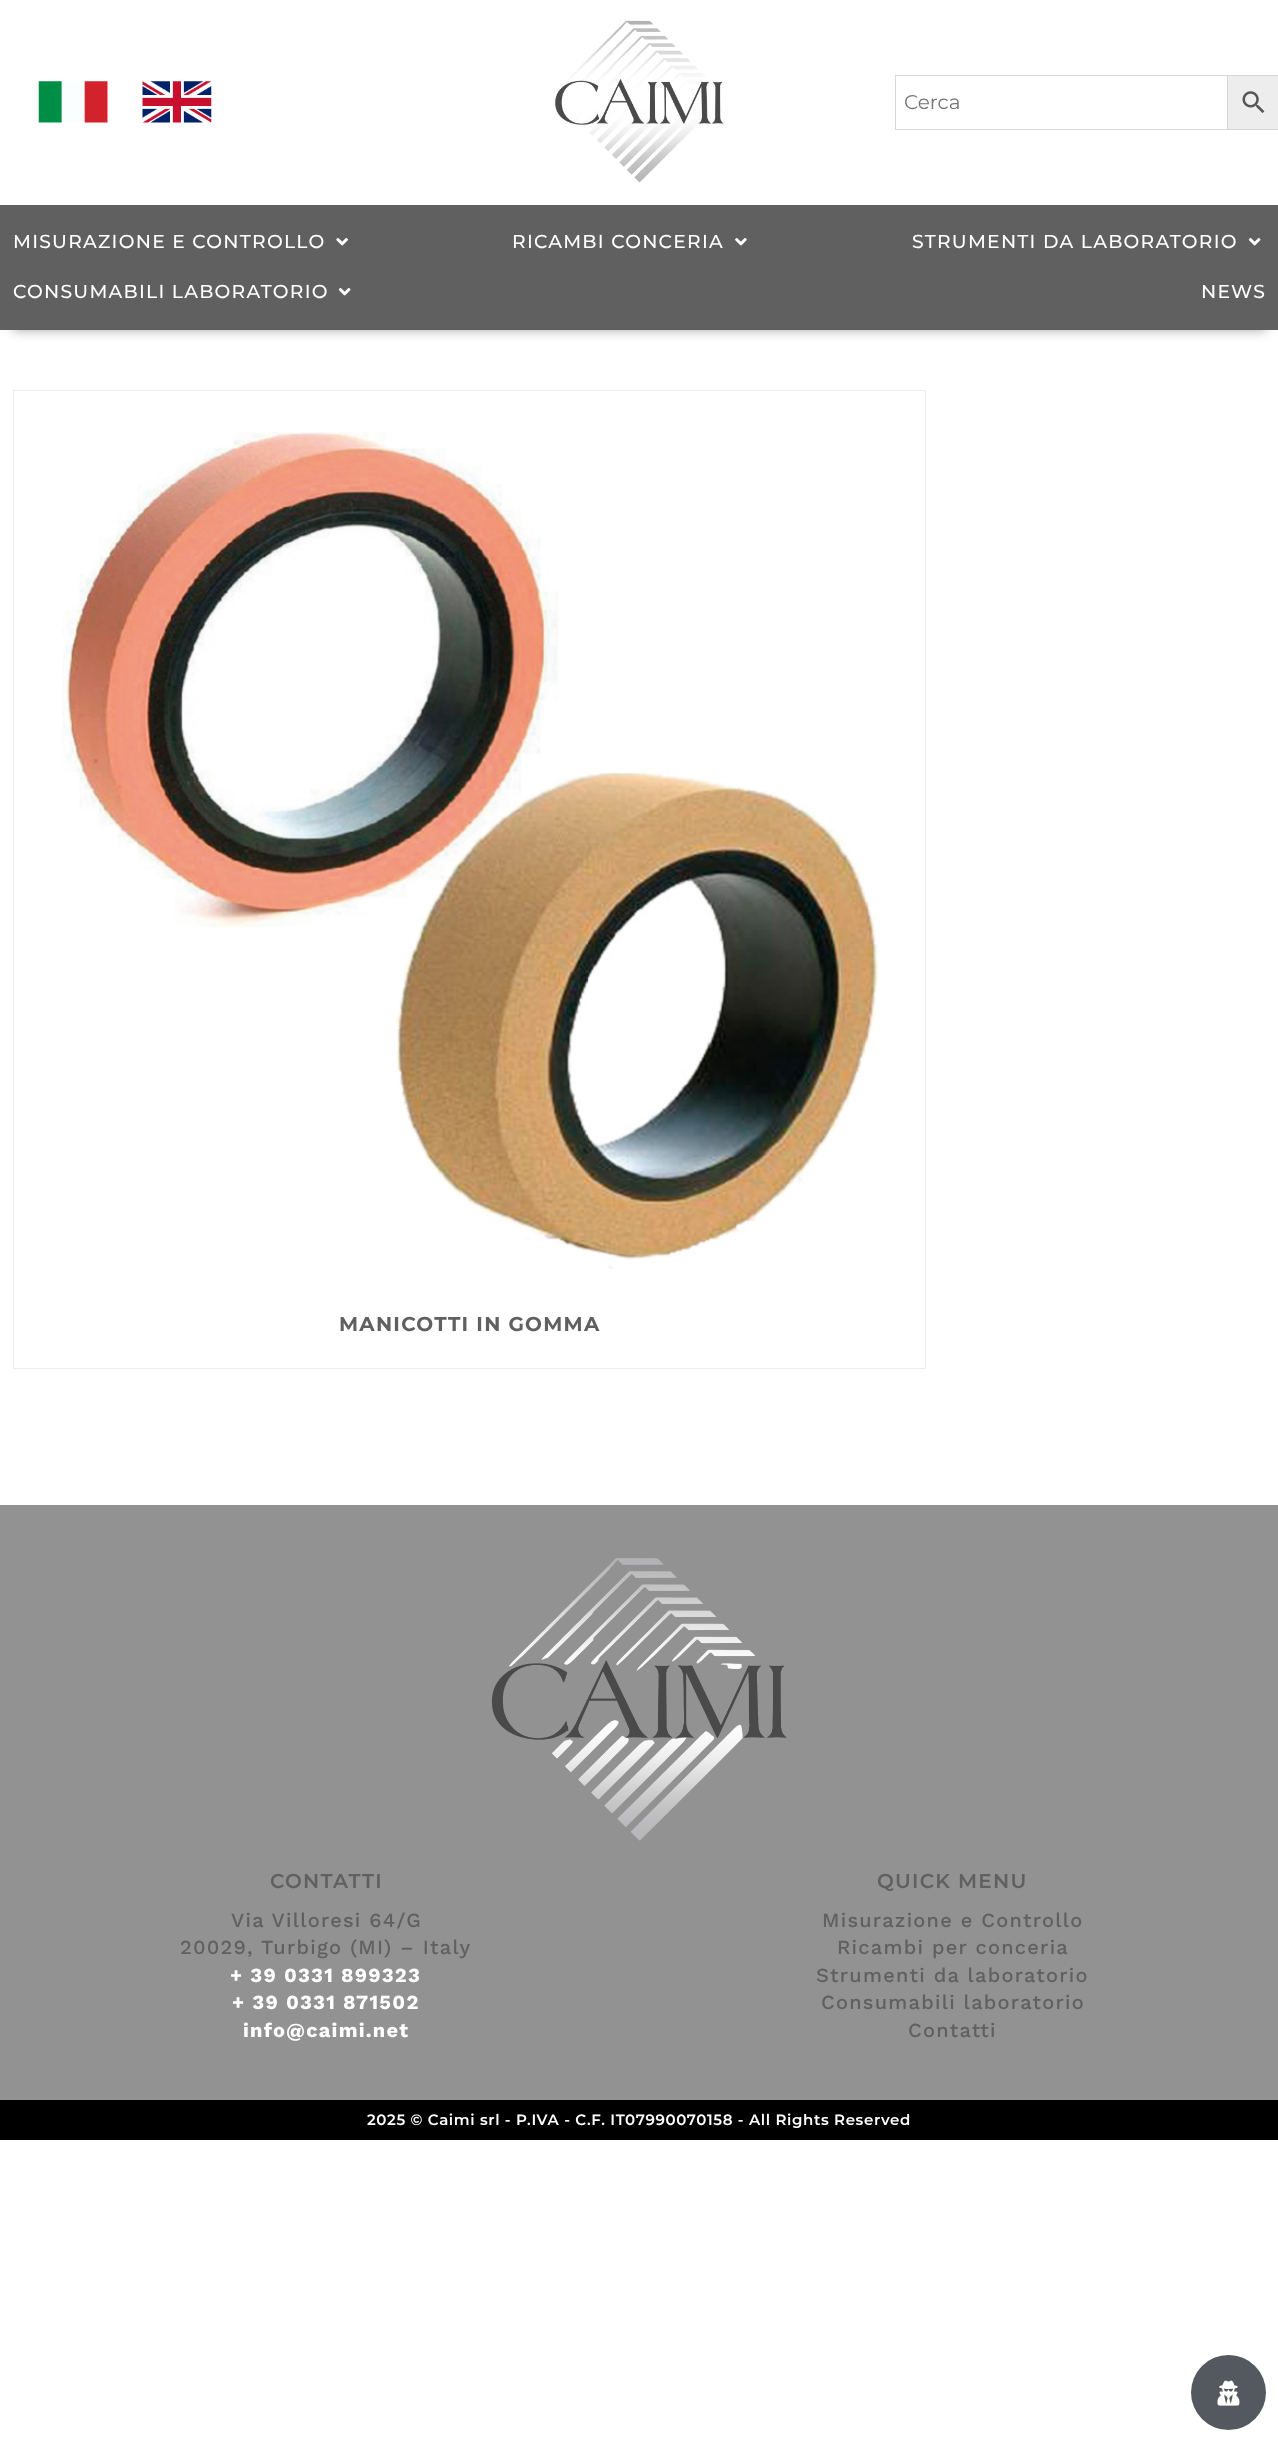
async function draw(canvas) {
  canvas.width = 1278
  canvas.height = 2454
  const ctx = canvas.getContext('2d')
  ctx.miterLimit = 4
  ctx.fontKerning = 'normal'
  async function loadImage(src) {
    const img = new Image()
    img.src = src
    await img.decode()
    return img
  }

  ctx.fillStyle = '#fff'
  ctx.fillRect(0, 0, 1278, 2454)
  ctx.drawImage(await loadImage('image0.png'), 38, 81, 70, 42)
  ctx.drawImage(await loadImage('image1.png'), 142, 81, 70, 42)
  ctx.drawImage(await loadImage('image2.png'), 555, 20, 169, 163)
  ctx.fillStyle = '#ededed'
  ctx.fillRect(1228, 76, 50, 53)
  ctx.strokeStyle = '#d8d8d8'
  ctx.strokeRect(1226.5, 75.5, 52, 54)
  ctx.fillStyle = '#fff'
  ctx.fillRect(1226, 76, 1, 53)
  ctx.strokeRect(895.5, 75.5, 332, 54)
  ctx.font = '20px Montserrat'
  ctx.fillStyle = '#757575'
  ctx.fillText('Cerca', 904, 109)
  ctx.drawImage(await loadImage('image3.png'), 1242, 91, 23, 22)
  ctx.fillStyle = '#0000005c'
  ctx.filter = 'blur(6px)'
  ctx.beginPath()
  ctx.rect(13, 230, 1253, 100)
  ctx.fill()
  ctx.filter = 'none'
  ctx.fillStyle = '#606060'
  ctx.fillRect(0, 205, 1278, 125)
  ctx.letterSpacing = '1.25px'
  ctx.font = '500 18.75px Montserrat'
  ctx.fillStyle = '#fff'
  ctx.fillText('MISURAZIONE E CONTROLLO', 13, 248)
  ctx.drawImage(await loadImage('image4.png'), 336, 238, 12, 8)
  ctx.fillText('RICAMBI CONCERIA', 512, 248)
  ctx.drawImage(await loadImage('image5.png'), 735, 238, 12, 8)
  ctx.fillText('STRUMENTI DA LABORATORIO', 912, 248)
  ctx.drawImage(await loadImage('image6.png'), 1248, 238, 13, 8)
  ctx.fillText('CONSUMABILI LABORATORIO', 13, 298)
  ctx.drawImage(await loadImage('image6.png'), 338, 288, 13, 8)
  ctx.fillText('NEWS', 1201, 298)
  ctx.strokeStyle = '#eee'
  ctx.strokeRect(13.5, 390.5, 912, 978)
  ctx.drawImage(await loadImage('image7.png'), 62, 432, 817, 837)
  ctx.font = 'bold 20px Montserrat'
  ctx.fillStyle = '#606060'
  ctx.fillText('MANICOTTI IN GOMMA', 339, 1331)
  ctx.fillStyle = '#929292'
  ctx.fillRect(0, 1505, 1278, 595)
  ctx.drawImage(await loadImage('image8.png'), 491, 1558, 296, 283)
  ctx.font = '600 20px Montserrat'
  ctx.fillStyle = '#606060'
  ctx.fillText('CONTATTI', 270, 1888)
  ctx.font = '500 20px Work Sans'
  ctx.fillText('Via Villoresi 64/G', 231, 1927)
  ctx.fillText('20029, Turbigo (MI) – Italy', 180, 1954)
  ctx.font = 'bold 20px Work Sans'
  ctx.fillStyle = '#fff'
  ctx.fillText('+ 39 0331 899323', 230, 1982)
  ctx.fillText('+ 39 0331 871502', 232, 2009)
  ctx.fillText('info@caimi.net', 243, 2037)
  ctx.font = '600 20px Montserrat'
  ctx.fillStyle = '#606060'
  ctx.fillText('QUICK MENU', 877, 1888)
  ctx.font = '500 20px Work Sans'
  ctx.fillText('Misurazione e Controllo', 822, 1927)
  ctx.fillText('Ricambi per conceria', 837, 1954)
  ctx.fillText('Strumenti da laboratorio', 816, 1982)
  ctx.fillText('Consumabili laboratorio', 821, 2009)
  ctx.fillText('Contatti', 908, 2037)
  ctx.fillStyle = '#000'
  ctx.fillRect(0, 2100, 1278, 40)
  ctx.letterSpacing = '0.62px'
  ctx.font = '600 15px Montserrat'
  ctx.fillStyle = '#fff'
  ctx.fillText('2025 © Caimi srl - P.IVA - C.F. IT07990070158 - All Rights Reserved', 367, 2125)
  ctx.fillStyle = '#54595f'
  ctx.beginPath()
  ctx.arc(1228.5, 2392.5, 37.5, 0, 2 * Math.PI)
  ctx.fill()
  ctx.drawImage(await loadImage('image9.png'), 1217, 2380, 23, 26)
}

draw(document.querySelector('canvas'))
